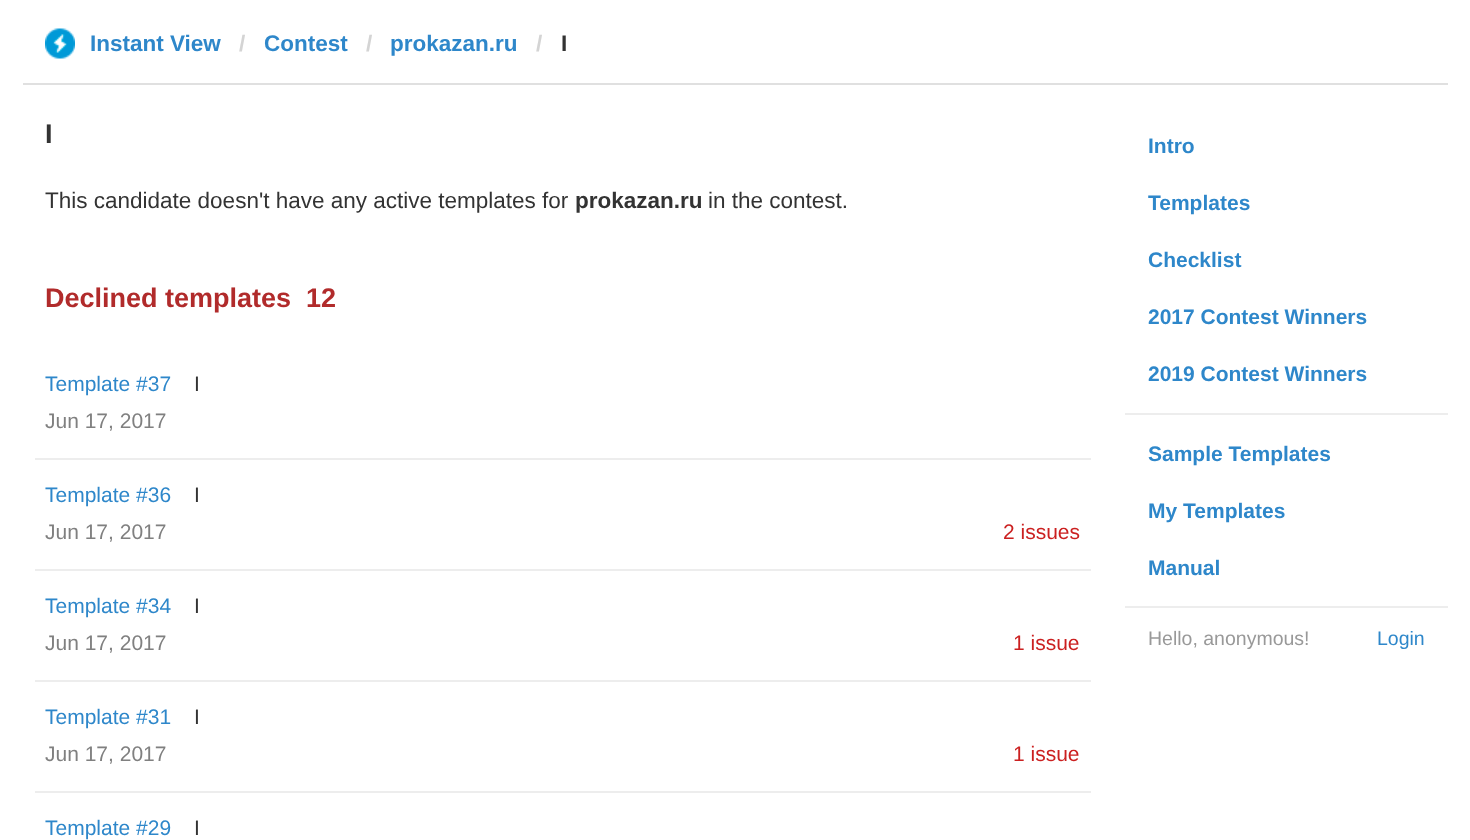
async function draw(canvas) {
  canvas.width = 1470
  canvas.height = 840
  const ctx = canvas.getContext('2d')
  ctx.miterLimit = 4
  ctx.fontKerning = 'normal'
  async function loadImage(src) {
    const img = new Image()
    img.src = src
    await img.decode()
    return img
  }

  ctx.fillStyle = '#fff'
  ctx.fillRect(0, 0, 1470, 840)
  ctx.fillStyle = '#e0e0e0'
  ctx.fillRect(23, 83, 1425, 2)
  ctx.drawImage(await loadImage('image0.png'), 45, 28, 30, 31)
  ctx.font = 'bold 22.5px Liberation Sans'
  ctx.fillStyle = '#2e87ca'
  ctx.fillText('Instant View', 90, 51)
  ctx.fillStyle = '#d4d4d4'
  ctx.fillText('/', 239, 51)
  ctx.fillStyle = '#2e87ca'
  ctx.fillText('Contest', 264, 51)
  ctx.fillStyle = '#d4d4d4'
  ctx.fillText('/', 366, 51)
  ctx.fillStyle = '#2e87ca'
  ctx.fillText('prokazan.ru', 390, 51)
  ctx.fillStyle = '#d4d4d4'
  ctx.fillText('/', 536, 51)
  ctx.fillStyle = '#333'
  ctx.fillText('I', 561, 51)
  ctx.font = 'bold 27px Liberation Sans'
  ctx.fillText('I', 45, 143)
  ctx.font = '22.5px Liberation Sans'
  ctx.fillText('This candidate doesn\'t have any active templates for', 45, 208)
  ctx.font = 'bold 22.5px Liberation Sans'
  ctx.fillText('prokazan.ru', 575, 208)
  ctx.font = '22.5px Liberation Sans'
  ctx.fillText('in the contest.', 708, 208)
  ctx.font = 'bold 27px Liberation Sans'
  ctx.fillStyle = '#b12b2b'
  ctx.fillText('Declined templates', 45, 307)
  ctx.fillText('12', 306, 307)
  ctx.fillStyle = '#ededed'
  ctx.fillRect(35, 458, 1056, 2)
  ctx.font = '21px Liberation Sans'
  ctx.fillStyle = '#2e87ca'
  ctx.fillText('Template #37', 45, 391)
  ctx.fillStyle = '#333'
  ctx.fillText('I', 194, 391)
  ctx.fillStyle = '#808080'
  ctx.fillText('Jun 17, 2017', 45, 428)
  ctx.fillStyle = '#ededed'
  ctx.fillRect(35, 569, 1056, 2)
  ctx.fillStyle = '#2e87ca'
  ctx.fillText('Template #36', 45, 502)
  ctx.fillStyle = '#333'
  ctx.fillText('I', 194, 502)
  ctx.fillStyle = '#808080'
  ctx.fillText('Jun 17, 2017', 45, 539)
  ctx.fillStyle = '#cb2020'
  ctx.fillText('2 issues', 1003, 539)
  ctx.fillStyle = '#ededed'
  ctx.fillRect(35, 680, 1056, 2)
  ctx.fillStyle = '#2e87ca'
  ctx.fillText('Template #34', 45, 613)
  ctx.fillStyle = '#333'
  ctx.fillText('I', 194, 613)
  ctx.fillStyle = '#808080'
  ctx.fillText('Jun 17, 2017', 45, 650)
  ctx.fillStyle = '#cb2020'
  ctx.fillText('1 issue', 1013, 650)
  ctx.fillStyle = '#ededed'
  ctx.fillRect(35, 791, 1056, 2)
  ctx.fillStyle = '#2e87ca'
  ctx.fillText('Template #31', 45, 724)
  ctx.fillStyle = '#333'
  ctx.fillText('I', 194, 724)
  ctx.fillStyle = '#808080'
  ctx.fillText('Jun 17, 2017', 45, 761)
  ctx.fillStyle = '#cb2020'
  ctx.fillText('1 issue', 1013, 761)
  ctx.fillStyle = '#2e87ca'
  ctx.fillText('Template #29', 45, 835)
  ctx.fillStyle = '#333'
  ctx.fillText('I', 194, 835)
  ctx.font = 'bold 21px Liberation Sans'
  ctx.fillStyle = '#2e87ca'
  ctx.fillText('Intro', 1148, 153)
  ctx.fillText('Templates', 1148, 210)
  ctx.fillText('Checklist', 1148, 267)
  ctx.fillText('2017 Contest Winners', 1148, 324)
  ctx.fillText('2019 Contest Winners', 1148, 381)
  ctx.fillStyle = '#ededed'
  ctx.fillRect(1125, 413, 323, 2)
  ctx.fillStyle = '#2e87ca'
  ctx.fillText('Sample Templates', 1148, 461)
  ctx.fillText('My Templates', 1148, 518)
  ctx.fillText('Manual', 1148, 575)
  ctx.fillStyle = '#ededed'
  ctx.fillRect(1125, 606, 323, 2)
  ctx.font = '19.5px Liberation Sans'
  ctx.fillStyle = '#999'
  ctx.fillText('Hello, anonymous!', 1148, 645)
  ctx.fillStyle = '#2e87ca'
  ctx.fillText('Login', 1377, 645)
}

draw(document.querySelector('canvas'))
